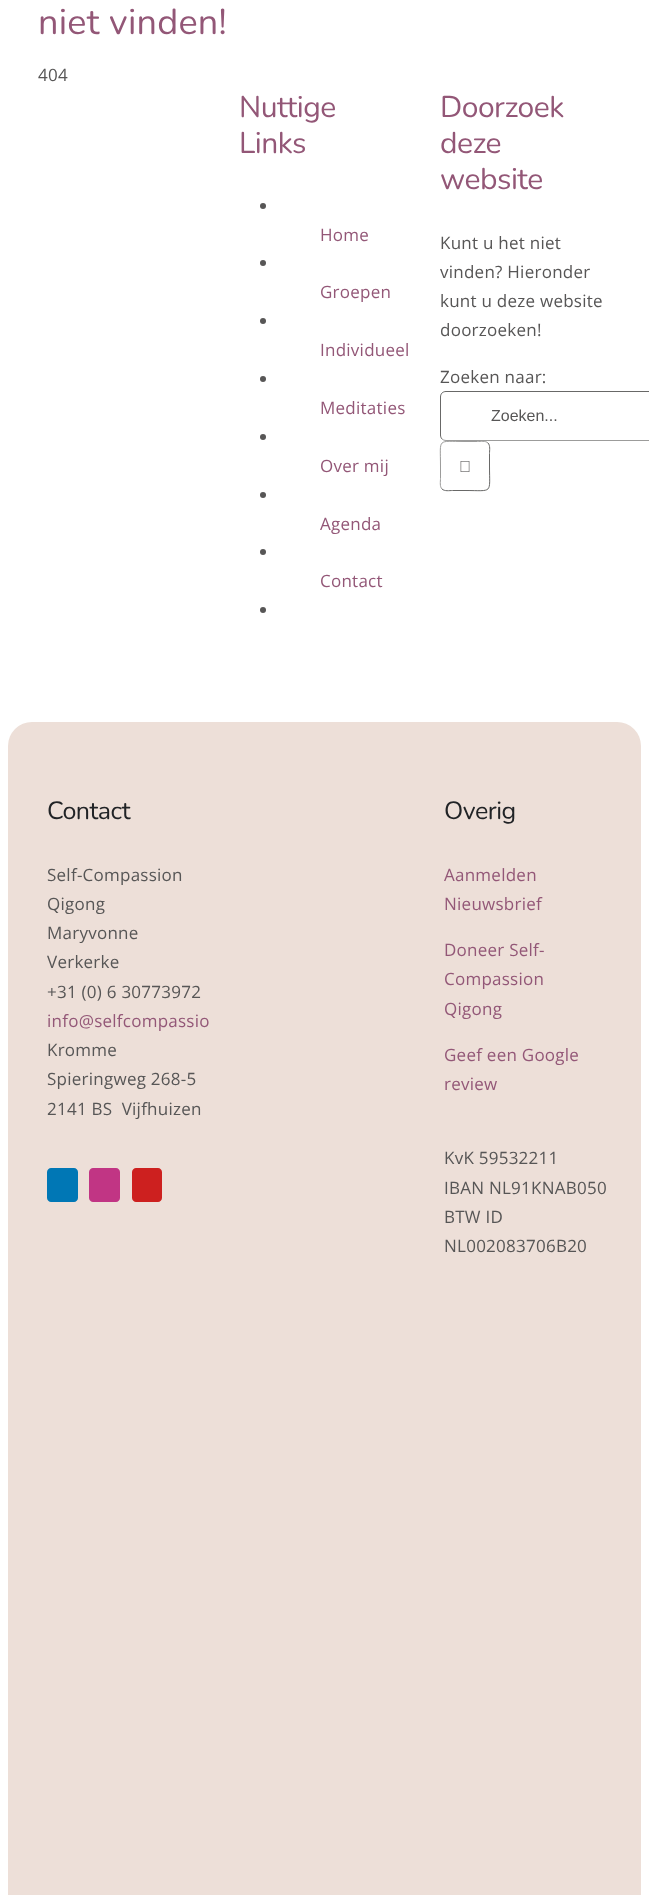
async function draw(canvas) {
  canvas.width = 649
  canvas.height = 1895
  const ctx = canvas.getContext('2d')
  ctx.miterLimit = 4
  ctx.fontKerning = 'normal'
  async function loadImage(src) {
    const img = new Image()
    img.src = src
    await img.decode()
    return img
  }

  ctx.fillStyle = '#fff'
  ctx.fillRect(0, 0, 649, 1895)
  ctx.letterSpacing = '0.25px'
  ctx.font = '200 36px Nunito'
  ctx.fillStyle = '#935777'
  ctx.fillText('niet vinden!', 38, 34)
  ctx.font = '17px Open Sans'
  ctx.fillStyle = '#575656'
  ctx.fillText('404', 38, 81)
  ctx.letterSpacing = '-0.5px'
  ctx.font = '200 30px Nunito'
  ctx.fillStyle = '#935777'
  ctx.fillText('Nuttige', 239, 117)
  ctx.fillText('Links', 239, 153)
  ctx.fillStyle = '#575656'
  ctx.beginPath()
  ctx.arc(263, 206, 3, 0, 2 * Math.PI)
  ctx.fill()
  ctx.letterSpacing = '0.25px'
  ctx.font = '17px Open Sans'
  ctx.fillStyle = '#935777'
  ctx.fillText('Home', 320, 241)
  ctx.fillStyle = '#575656'
  ctx.beginPath()
  ctx.arc(263, 263, 3, 0, 2 * Math.PI)
  ctx.fill()
  ctx.fillStyle = '#935777'
  ctx.fillText('Groepen', 320, 298)
  ctx.fillStyle = '#575656'
  ctx.beginPath()
  ctx.arc(263, 321, 3, 0, 2 * Math.PI)
  ctx.fill()
  ctx.fillStyle = '#935777'
  ctx.fillText('Individueel', 320, 356)
  ctx.fillStyle = '#575656'
  ctx.beginPath()
  ctx.arc(263, 379, 3, 0, 2 * Math.PI)
  ctx.fill()
  ctx.fillStyle = '#935777'
  ctx.fillText('Meditaties', 320, 414)
  ctx.fillStyle = '#575656'
  ctx.beginPath()
  ctx.arc(263, 437, 3, 0, 2 * Math.PI)
  ctx.fill()
  ctx.fillStyle = '#935777'
  ctx.fillText('Over mij', 320, 472)
  ctx.fillStyle = '#575656'
  ctx.beginPath()
  ctx.arc(263, 495, 3, 0, 2 * Math.PI)
  ctx.fill()
  ctx.fillStyle = '#935777'
  ctx.fillText('Agenda', 320, 530)
  ctx.fillStyle = '#575656'
  ctx.beginPath()
  ctx.arc(263, 552, 3, 0, 2 * Math.PI)
  ctx.fill()
  ctx.fillStyle = '#935777'
  ctx.fillText('Contact', 320, 587)
  ctx.fillStyle = '#575656'
  ctx.beginPath()
  ctx.arc(263, 610, 3, 0, 2 * Math.PI)
  ctx.fill()
  ctx.letterSpacing = '-0.5px'
  ctx.font = '200 30px Nunito'
  ctx.fillStyle = '#935777'
  ctx.fillText('Doorzoek', 440, 117)
  ctx.fillText('deze', 440, 153)
  ctx.fillText('website', 440, 189)
  ctx.letterSpacing = '0.25px'
  ctx.font = '17px Open Sans'
  ctx.fillStyle = '#575656'
  ctx.fillText('Kunt u het niet', 440, 249)
  ctx.fillText('vinden? Hieronder', 440, 278)
  ctx.fillText('kunt u deze website', 440, 307)
  ctx.fillText('doorzoeken!', 440, 336)
  ctx.fillText('Zoeken naar:', 440, 383)
  ctx.beginPath()
  ctx.moveTo(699, 393)
  ctx.bezierCurveTo(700, 394, 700.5, 395.5, 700.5, 397)
  ctx.lineTo(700.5, 435)
  ctx.bezierCurveTo(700.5, 436.5, 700, 438, 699, 439)
  ctx.bezierCurveTo(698, 440, 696.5, 440.5, 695, 440.5)
  ctx.lineTo(446, 440.5)
  ctx.bezierCurveTo(444.5, 440.5, 443, 440, 442, 439)
  ctx.strokeStyle = '#9c9c9b'
  ctx.stroke()
  ctx.beginPath()
  ctx.moveTo(442, 439)
  ctx.bezierCurveTo(441, 438, 440.5, 436.5, 440.5, 435)
  ctx.lineTo(440.5, 397)
  ctx.bezierCurveTo(440.5, 395.5, 441, 394, 442, 393)
  ctx.bezierCurveTo(443, 392, 444.5, 391.5, 446, 391.5)
  ctx.lineTo(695, 391.5)
  ctx.bezierCurveTo(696.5, 391.5, 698, 392, 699, 393)
  ctx.strokeStyle = '#686867'
  ctx.stroke()
  ctx.letterSpacing = '0px'
  ctx.font = '16px Liberation Sans'
  ctx.fillText('Zoeken...', 491, 421)
  ctx.beginPath()
  ctx.moveTo(488, 443)
  ctx.bezierCurveTo(490.5, 445.5, 489.5, 450.5, 489.5, 453.5)
  ctx.lineTo(489.5, 466)
  ctx.bezierCurveTo(489.5, 494.5, 493.5, 490.5, 465, 490.5)
  ctx.lineTo(452.5, 490.5)
  ctx.bezierCurveTo(449.5, 490.5, 444.5, 491.5, 442, 489)
  ctx.stroke()
  ctx.beginPath()
  ctx.moveTo(442, 489)
  ctx.bezierCurveTo(439.5, 486.5, 440.5, 481.5, 440.5, 478.5)
  ctx.lineTo(440.5, 466)
  ctx.bezierCurveTo(440.5, 437.5, 436.5, 441.5, 465, 441.5)
  ctx.lineTo(477.5, 441.5)
  ctx.bezierCurveTo(480.5, 441.5, 485.5, 440.5, 488, 443)
  ctx.strokeStyle = '#9c9c9b'
  ctx.stroke()
  ctx.drawImage(await loadImage('image0.png'), 460, 461, 10, 11)
  ctx.fillStyle = '#eddfd8'
  ctx.beginPath()
  ctx.roundRect(8, 722, 633, 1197, 24)
  ctx.fill()
  ctx.letterSpacing = '-0.5px'
  ctx.font = '200 25px Nunito'
  ctx.fillStyle = '#212326'
  ctx.fillText('Contact', 47, 819)
  ctx.letterSpacing = '0.25px'
  ctx.font = '17px Open Sans'
  ctx.fillStyle = '#575656'
  ctx.fillText('Self-Compassion', 47, 881)
  ctx.fillText('Qigong', 47, 910)
  ctx.fillText('Maryvonne', 47, 939)
  ctx.fillText('Verkerke', 47, 968)
  ctx.fillText('+31 (0) 6 30773972', 47, 998)
  ctx.fillStyle = '#935777'
  ctx.fillText('info@selfcompassio', 47, 1027)
  ctx.fillStyle = '#575656'
  ctx.fillText('Kromme', 47, 1056)
  ctx.fillText('Spieringweg 268-5', 47, 1085)
  ctx.fillText('2141 BS  Vijfhuizen', 47, 1115)
  ctx.fillStyle = '#0077b5'
  ctx.beginPath()
  ctx.moveTo(51, 1168)
  ctx.lineTo(74, 1168)
  ctx.bezierCurveTo(76, 1168, 78, 1170, 78, 1172)
  ctx.lineTo(78, 1198)
  ctx.bezierCurveTo(78, 1200, 76, 1202, 74, 1202)
  ctx.lineTo(51, 1202)
  ctx.bezierCurveTo(49, 1202, 47, 1200, 47, 1198)
  ctx.lineTo(47, 1172)
  ctx.bezierCurveTo(47, 1170, 49, 1168, 51, 1168)
  ctx.closePath()
  ctx.fill()
  ctx.fillStyle = '#c13584'
  ctx.beginPath()
  ctx.moveTo(93, 1168)
  ctx.lineTo(116, 1168)
  ctx.bezierCurveTo(118, 1168, 120, 1170, 120, 1172)
  ctx.lineTo(120, 1198)
  ctx.bezierCurveTo(120, 1200, 118, 1202, 116, 1202)
  ctx.lineTo(93, 1202)
  ctx.bezierCurveTo(91, 1202, 89, 1200, 89, 1198)
  ctx.lineTo(89, 1172)
  ctx.bezierCurveTo(89, 1170, 91, 1168, 93, 1168)
  ctx.closePath()
  ctx.fill()
  ctx.fillStyle = '#cd201f'
  ctx.beginPath()
  ctx.moveTo(136, 1168)
  ctx.lineTo(158, 1168)
  ctx.bezierCurveTo(160, 1168, 162, 1170, 162, 1172)
  ctx.lineTo(162, 1198)
  ctx.bezierCurveTo(162, 1200, 160, 1202, 158, 1202)
  ctx.lineTo(136, 1202)
  ctx.bezierCurveTo(134, 1202, 132, 1200, 132, 1198)
  ctx.lineTo(132, 1172)
  ctx.bezierCurveTo(132, 1170, 134, 1168, 136, 1168)
  ctx.closePath()
  ctx.fill()
  ctx.letterSpacing = '-0.5px'
  ctx.font = '200 25px Nunito'
  ctx.fillStyle = '#212326'
  ctx.fillText('Overig', 444, 819)
  ctx.letterSpacing = '0.25px'
  ctx.font = '17px Open Sans'
  ctx.fillStyle = '#935777'
  ctx.fillText('Aanmelden', 444, 881)
  ctx.fillText('Nieuwsbrief', 444, 910)
  ctx.fillText('Doneer Self-', 444, 956)
  ctx.fillText('Compassion', 444, 985)
  ctx.fillText('Qigong', 444, 1015)
  ctx.fillText('Geef een Google', 444, 1061)
  ctx.fillText('review', 444, 1090)
  ctx.fillStyle = '#575656'
  ctx.fillText('KvK 59532211', 444, 1164)
  ctx.fillText('IBAN NL91KNAB050', 444, 1194)
  ctx.fillText('BTW ID', 444, 1223)
  ctx.fillText('NL002083706B20', 444, 1252)
}

draw(document.querySelector('canvas'))
